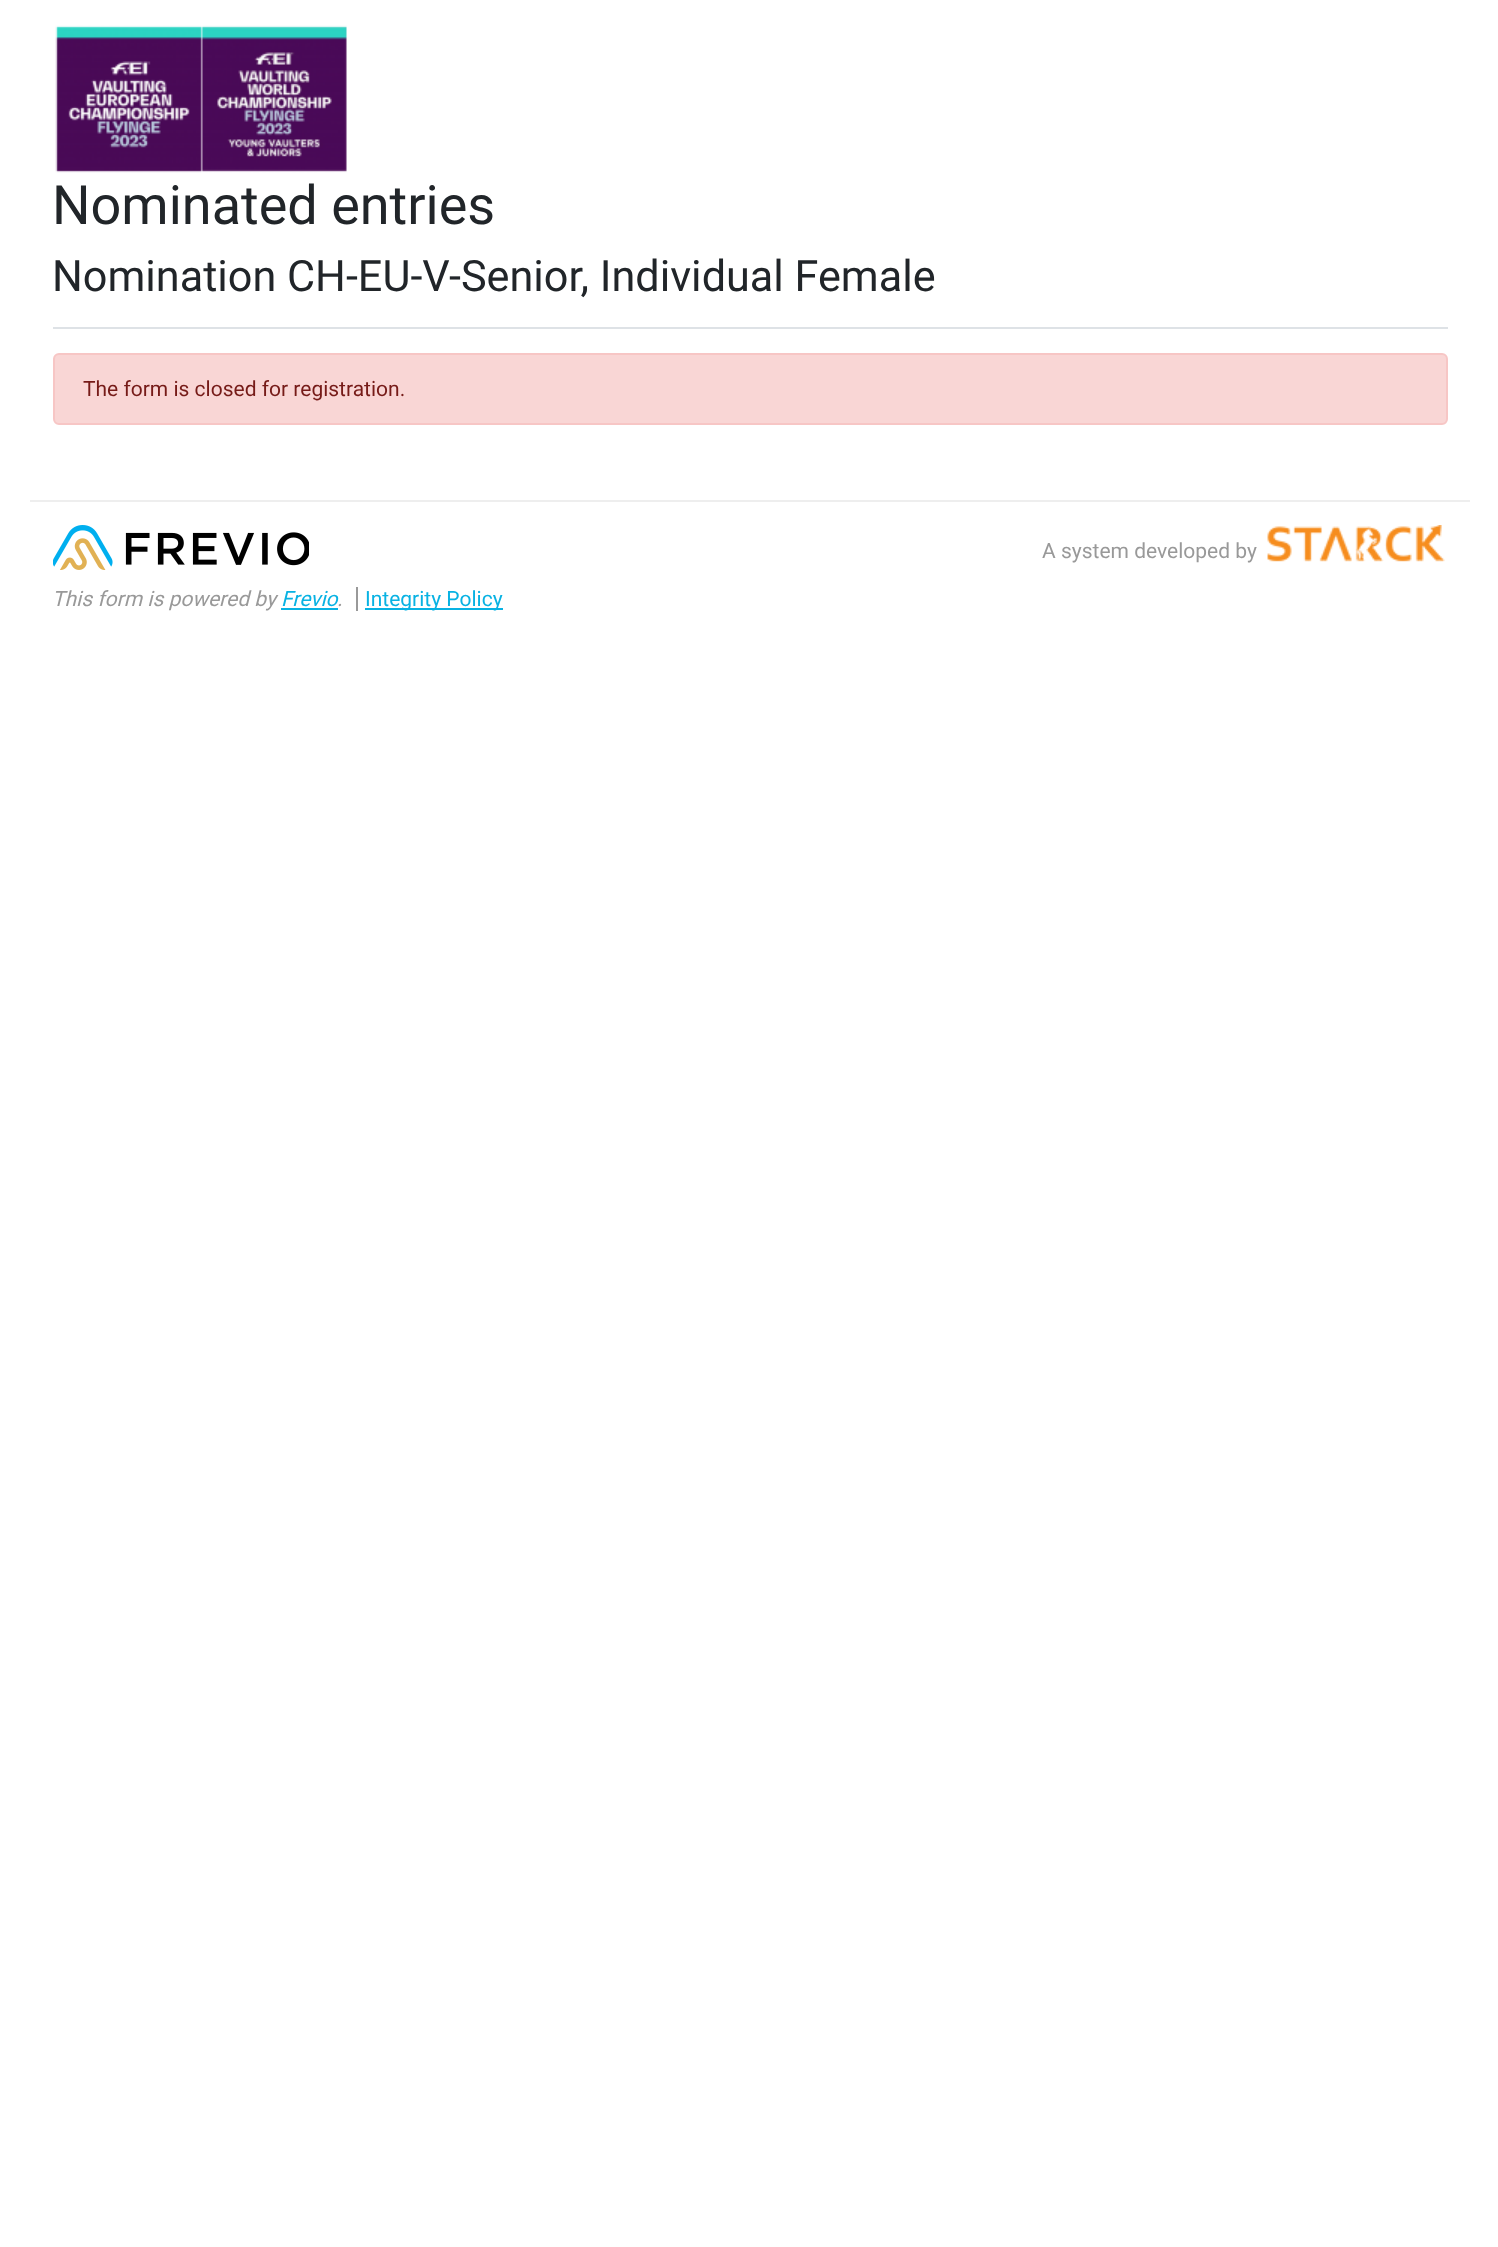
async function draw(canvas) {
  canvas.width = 1498
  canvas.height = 2247
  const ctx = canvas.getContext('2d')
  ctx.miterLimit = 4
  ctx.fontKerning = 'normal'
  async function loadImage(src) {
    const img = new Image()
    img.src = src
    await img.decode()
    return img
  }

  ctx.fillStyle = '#fff'
  ctx.fillRect(0, 0, 1498, 2247)
  ctx.fillStyle = '#dee2e6'
  ctx.fillRect(53, 327, 1395, 2)
  ctx.drawImage(await loadImage('image0.png'), 55, 25, 292, 148)
  ctx.font = '54px Roboto'
  ctx.fillStyle = '#212529'
  ctx.fillText('Nominated entries', 52, 224)
  ctx.font = '43.2px Roboto'
  ctx.fillText('Nomination CH-EU-V-Senior, Individual Female', 52, 291)
  ctx.fillStyle = '#f9d6d5'
  ctx.beginPath()
  ctx.roundRect(54, 354, 1393, 70, 5)
  ctx.fill()
  ctx.strokeStyle = '#f7c6c5'
  ctx.lineWidth = 2
  ctx.stroke()
  ctx.font = '21px Roboto'
  ctx.fillStyle = '#761b18'
  ctx.fillText('The form is closed for registration.', 83, 396)
  ctx.fillStyle = '#eee'
  ctx.fillRect(30, 500, 1440, 2)
  ctx.fillStyle = '#999'
  ctx.fillText('A system developed by', 1042, 558)
  ctx.drawImage(await loadImage('image1.png'), 1267, 525, 178, 37)
  ctx.drawImage(await loadImage('image2.png'), 53, 525, 256, 45)
  ctx.font = 'italic 21px Roboto'
  ctx.fillText('This form is powered by', 52, 606)
  ctx.fillStyle = '#08b2e3'
  ctx.fillText('Frevio', 281, 606)
  ctx.fillStyle = '#999'
  ctx.fillText('.', 337, 606)
  ctx.fillStyle = '#08b2e3'
  ctx.fillRect(281, 608, 57, 2)
  ctx.fillRect(365, 608, 138, 2)
  ctx.font = '21px Roboto'
  ctx.fillText('Integrity Policy', 365, 606)
  ctx.fillStyle = '#999'
  ctx.fillRect(356, 587, 2, 24)
}

draw(document.querySelector('canvas'))
